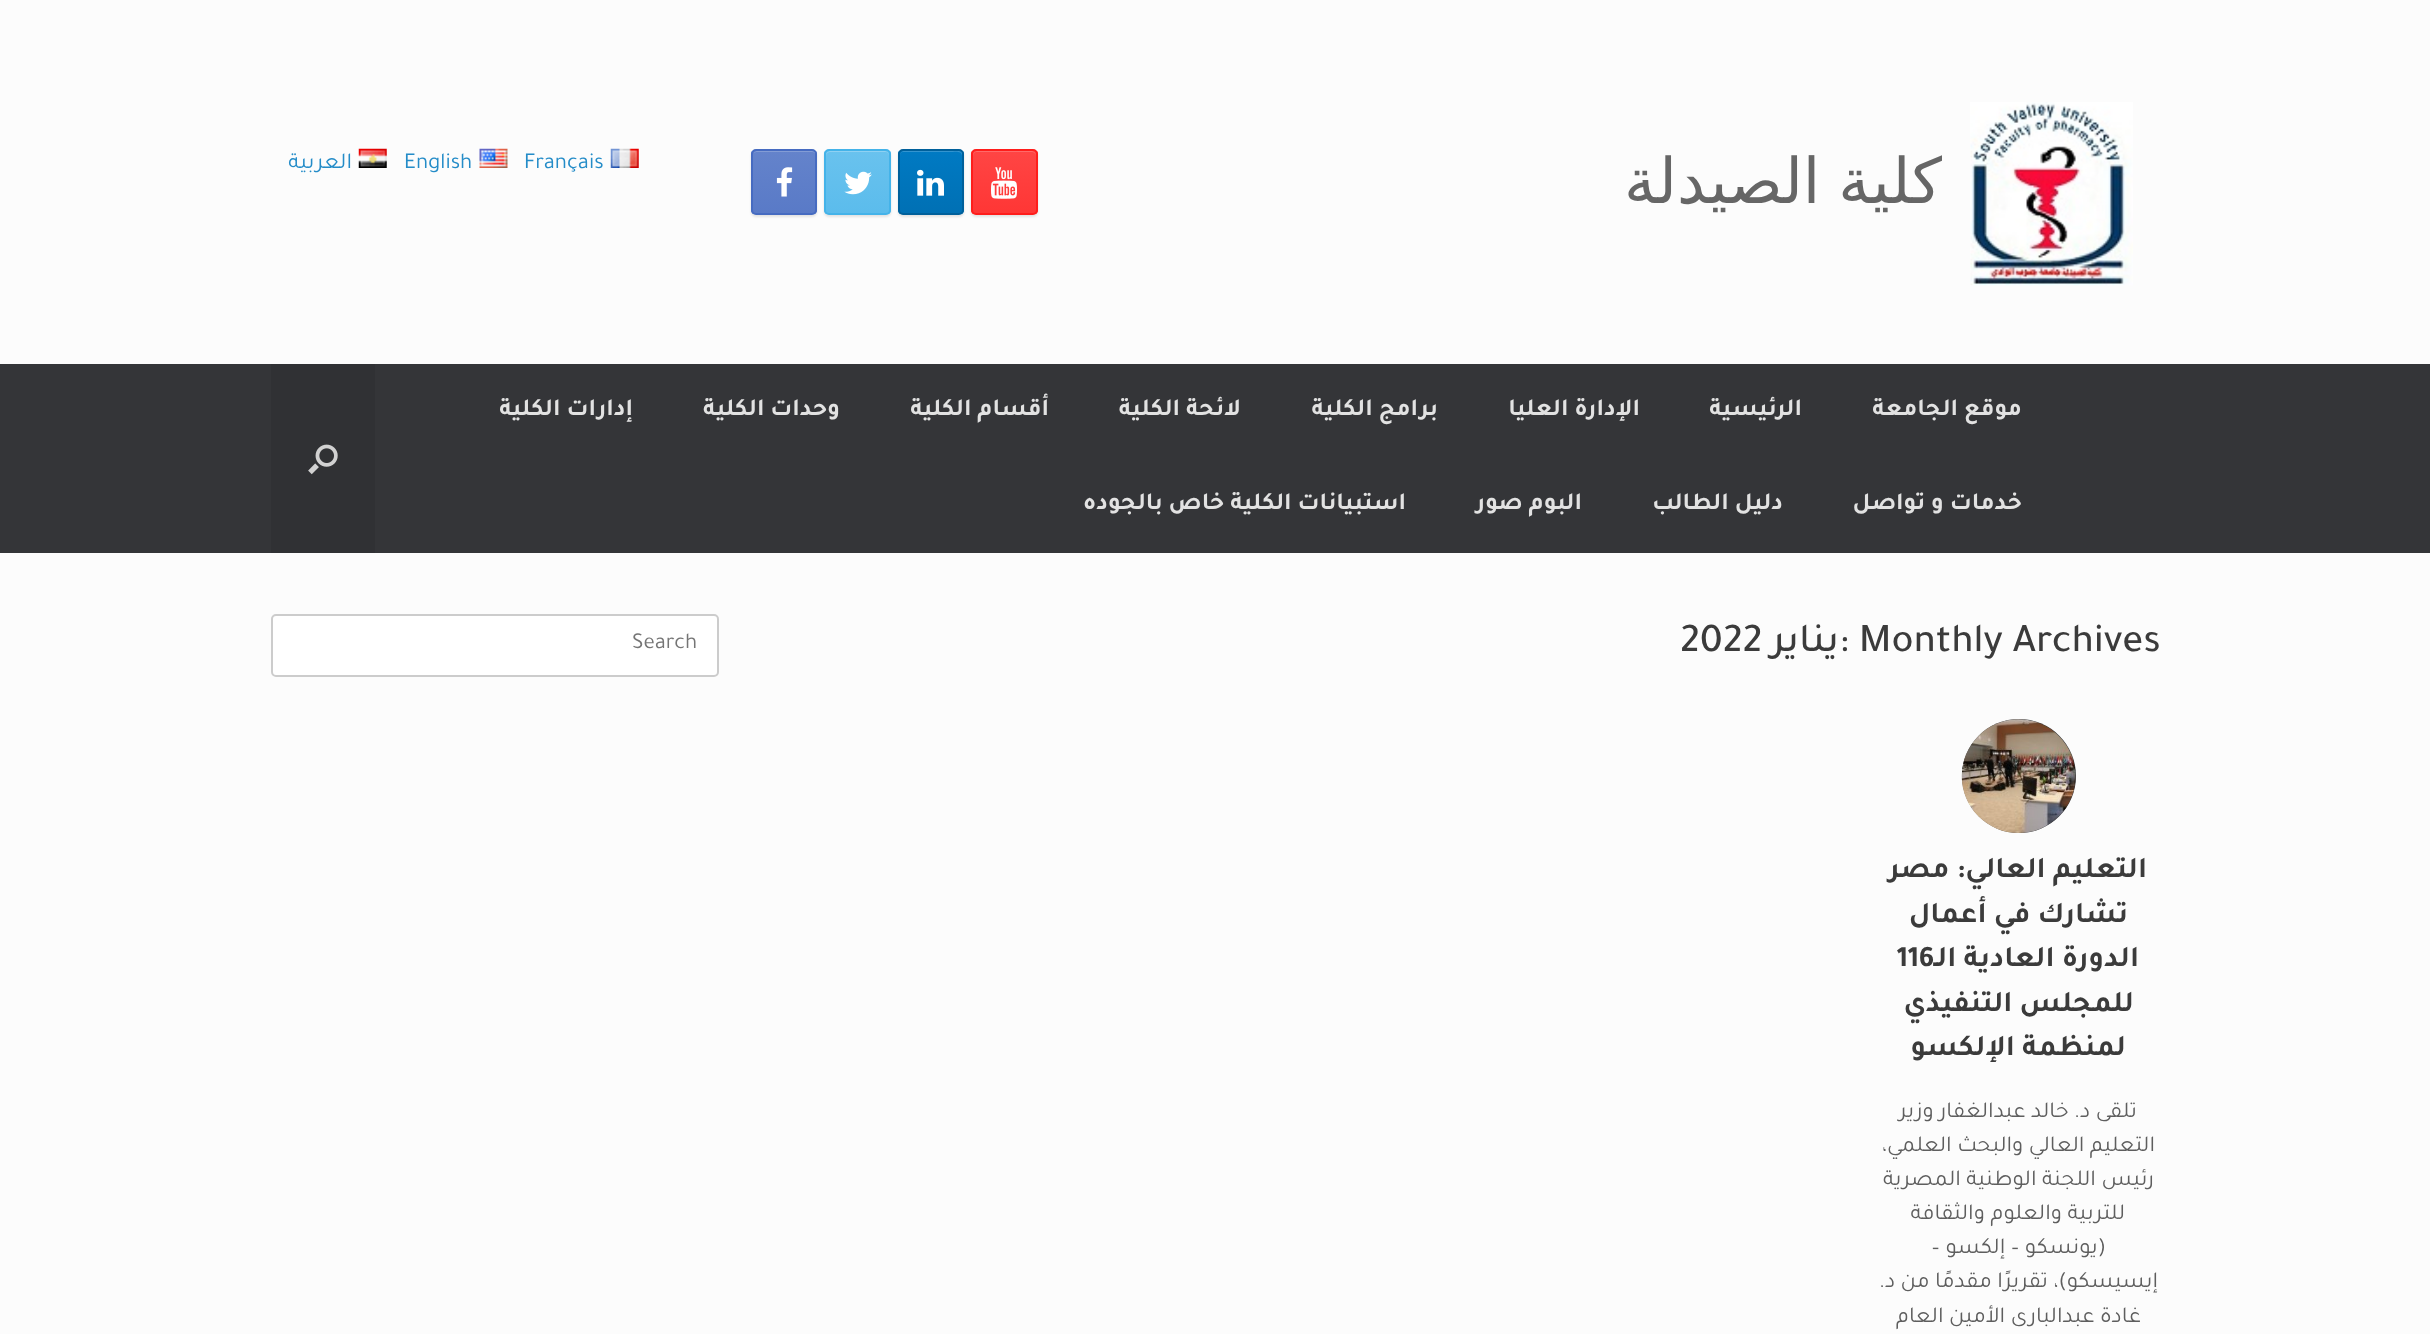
async function draw(canvas) {
  canvas.width = 2430
  canvas.height = 1334
  const ctx = canvas.getContext('2d')
  ctx.miterLimit = 4
  ctx.fontKerning = 'normal'
  async function loadImage(src) {
    const img = new Image()
    img.src = src
    await img.decode()
    return img
  }
  let gradient

  ctx.fillStyle = '#fcfcfc'
  ctx.fillRect(0, 0, 2430, 1334)
  ctx.drawImage(await loadImage('image0.png'), 1970, 102, 163, 184)
  ctx.wordSpacing = '-2px'
  ctx.direction = 'rtl'
  ctx.font = '63px DejaVu Sans'
  ctx.fillStyle = '#666'
  ctx.fillText('كلية الصيدلة', 1942, 203)
  ctx.fillStyle = '#0000001a'
  ctx.filter = 'blur(1px)'
  ctx.beginPath()
  ctx.roundRect(971, 151, 67, 66, 5)
  ctx.fill()
  ctx.filter = 'none'
  ctx.save()
  ctx.beginPath()
  ctx.roundRect(971, 149, 67, 66, 5)
  ctx.clip()
  gradient = ctx.createLinearGradient(973, 214, 973, 151)
  gradient.addColorStop(0, '#ff3635')
  gradient.addColorStop(1, '#ff4544')
  ctx.fillStyle = gradient
  ctx.fillRect(971, 151, 67, 63)
  ctx.restore()
  ctx.fillStyle = '#ff6a69'
  ctx.beginPath()
  ctx.moveTo(976, 152)
  ctx.lineTo(1032, 152)
  ctx.bezierCurveTo(1034, 152, 1036, 154, 1036, 156)
  ctx.bezierCurveTo(1036, 149, 1028, 151, 1023, 151)
  ctx.lineTo(986, 151)
  ctx.bezierCurveTo(981, 151, 973, 149, 973, 156)
  ctx.bezierCurveTo(973, 154, 975, 152, 976, 152)
  ctx.closePath()
  ctx.fill()
  ctx.beginPath()
  ctx.roundRect(972, 150, 65, 64, 4)
  ctx.strokeStyle = '#ff1d1b'
  ctx.lineWidth = 2
  ctx.stroke()
  ctx.drawImage(await loadImage('image1.png'), 991, 167, 26, 32)
  ctx.fillStyle = '#0000001a'
  ctx.filter = 'blur(1px)'
  ctx.beginPath()
  ctx.roundRect(898, 151, 66, 66, 5)
  ctx.fill()
  ctx.filter = 'none'
  ctx.save()
  ctx.beginPath()
  ctx.roundRect(898, 149, 66, 66, 5)
  ctx.clip()
  gradient = ctx.createLinearGradient(900, 214, 900, 151)
  gradient.addColorStop(0, '#0070b4')
  gradient.addColorStop(1, '#007ac3')
  ctx.fillStyle = gradient
  ctx.fillRect(898, 151, 66, 63)
  ctx.restore()
  ctx.fillStyle = '#ffffff33'
  ctx.beginPath()
  ctx.moveTo(903, 152)
  ctx.lineTo(950, 152)
  ctx.bezierCurveTo(954, 152, 962, 150, 962, 156)
  ctx.lineTo(962, 213)
  ctx.bezierCurveTo(963, 212, 963, 211, 963, 210)
  ctx.lineTo(963, 155)
  ctx.bezierCurveTo(963, 153, 961, 151, 959, 151)
  ctx.lineTo(904, 151)
  ctx.bezierCurveTo(902, 151, 900, 153, 900, 155)
  ctx.lineTo(900, 156)
  ctx.bezierCurveTo(900, 154, 901, 152, 903, 152)
  ctx.closePath()
  ctx.fill()
  ctx.beginPath()
  ctx.roundRect(899, 150, 64, 64, 4)
  ctx.strokeStyle = '#00609b'
  ctx.stroke()
  ctx.drawImage(await loadImage('image2.png'), 917, 169, 27, 27)
  ctx.fillStyle = '#0000001a'
  ctx.filter = 'blur(1px)'
  ctx.beginPath()
  ctx.roundRect(824, 151, 67, 66, 5)
  ctx.fill()
  ctx.filter = 'none'
  ctx.save()
  ctx.beginPath()
  ctx.roundRect(824, 149, 67, 66, 5)
  ctx.clip()
  gradient = ctx.createLinearGradient(826, 214, 826, 151)
  gradient.addColorStop(0, '#5bbcec')
  gradient.addColorStop(1, '#69c2ee')
  ctx.fillStyle = gradient
  ctx.fillRect(824, 151, 67, 63)
  ctx.restore()
  ctx.fillStyle = '#8fd1f2'
  ctx.beginPath()
  ctx.moveTo(830, 152)
  ctx.lineTo(886, 152)
  ctx.bezierCurveTo(887, 152, 889, 154, 889, 156)
  ctx.bezierCurveTo(889, 149, 881, 151, 876, 151)
  ctx.lineTo(839, 151)
  ctx.bezierCurveTo(834, 151, 826, 149, 826, 156)
  ctx.bezierCurveTo(826, 154, 828, 152, 830, 152)
  ctx.closePath()
  ctx.fill()
  ctx.beginPath()
  ctx.roundRect(825, 150, 65, 64, 4)
  ctx.strokeStyle = '#44b3e9'
  ctx.stroke()
  ctx.drawImage(await loadImage('image3.png'), 844, 171, 28, 24)
  ctx.fillStyle = '#0000001a'
  ctx.filter = 'blur(1px)'
  ctx.beginPath()
  ctx.roundRect(751, 151, 66, 66, 5)
  ctx.fill()
  ctx.filter = 'none'
  ctx.save()
  ctx.beginPath()
  ctx.roundRect(751, 149, 66, 66, 5)
  ctx.clip()
  gradient = ctx.createLinearGradient(753, 214, 753, 151)
  gradient.addColorStop(0, '#597ac7')
  gradient.addColorStop(1, '#6483cb')
  ctx.fillStyle = gradient
  ctx.fillRect(751, 151, 66, 63)
  ctx.restore()
  ctx.fillStyle = '#839cd5'
  ctx.beginPath()
  ctx.moveTo(756, 152)
  ctx.lineTo(812, 152)
  ctx.bezierCurveTo(814, 152, 816, 154, 816, 156)
  ctx.lineTo(816, 155)
  ctx.bezierCurveTo(816, 153, 814, 151, 812, 151)
  ctx.lineTo(757, 151)
  ctx.bezierCurveTo(756, 151, 754, 152, 754, 153)
  ctx.closePath()
  ctx.fill()
  ctx.beginPath()
  ctx.roundRect(752, 150, 64, 64, 4)
  ctx.strokeStyle = '#466bc1'
  ctx.stroke()
  ctx.drawImage(await loadImage('image4.png'), 776, 167, 17, 30)
  ctx.drawImage(await loadImage('image5.png'), 610, 148, 29, 20)
  ctx.wordSpacing = '0px'
  ctx.direction = 'ltr'
  ctx.font = '22.75px Tajawal'
  ctx.fillStyle = '#248cc8'
  ctx.fillText('Français', 524, 168)
  ctx.drawImage(await loadImage('image6.png'), 479, 148, 29, 20)
  ctx.fillText('English', 404, 168)
  ctx.drawImage(await loadImage('image7.png'), 358, 148, 29, 20)
  ctx.direction = 'rtl'
  ctx.fillText('العربية', 352, 168)
  ctx.fillStyle = '#343538'
  ctx.fillRect(0, 364, 2430, 189)
  ctx.font = 'bold 24.5px Tajawal'
  ctx.fillStyle = '#e2e2e2'
  ctx.fillText('موقع الجامعة', 2022, 415)
  ctx.fillText('الرئيسية', 1802, 415)
  ctx.fillText('الإدارة العليا', 1640, 415)
  ctx.fillText('برامج الكلية', 1438, 415)
  ctx.fillText('لائحة الكلية', 1241, 415)
  ctx.fillText('أقسام الكلية', 1049, 415)
  ctx.fillText('وحدات الكلية', 840, 415)
  ctx.fillText('إدارات الكلية', 633, 415)
  ctx.fillText('خدمات و تواصل', 2022, 509)
  ctx.fillText('دليل الطالب', 1783, 509)
  ctx.fillText('البوم صور', 1582, 509)
  ctx.fillText('استبيانات الكلية خاص بالجوده', 1406, 509)
  ctx.fillStyle = '#303134'
  ctx.fillRect(271, 364, 104, 189)
  ctx.drawImage(await loadImage('image8.png'), 308, 444, 30, 31)
  ctx.direction = 'ltr'
  ctx.font = '500 41px Tajawal'
  ctx.fillStyle = '#3b3b3b'
  ctx.fillText(': Monthly Archives', 1839, 651)
  ctx.direction = 'rtl'
  ctx.fillText('يناير', 1839, 651)
  ctx.direction = 'ltr'
  ctx.fillText('2022', 1680, 651)
  ctx.fillStyle = '#3a3b3e'
  ctx.beginPath()
  ctx.arc(2019, 776, 57, 0, 2 * Math.PI)
  ctx.fill()
  ctx.drawImage(await loadImage('image9.png'), 1961, 719, 115, 114)
  ctx.direction = 'rtl'
  ctx.font = 'bold 29.75px Tajawal'
  ctx.fillStyle = '#3b3b3b'
  ctx.fillText('التعليم العالي: مصر', 2147, 877)
  ctx.fillText('تشارك في أعمال', 2128, 922)
  ctx.fillText('الدورة العادية الـ', 2139, 966)
  ctx.direction = 'ltr'
  ctx.fillText('116', 1897, 966)
  ctx.direction = 'rtl'
  ctx.fillText('للمجلس التنفيذي', 2134, 1011)
  ctx.fillText('لمنظمة الإلكسو', 2126, 1055)
  ctx.font = '22.75px Tajawal'
  ctx.fillStyle = '#5e5e5e'
  ctx.fillText('تلقى د. خالد عبدالغفار وزير', 2137, 1117)
  ctx.fillText('التعليم العالي والبحث العلمي،', 2155, 1151)
  ctx.fillText('رئيس اللجنة الوطنية المصرية', 2154, 1185)
  ctx.fillText('للتربية والعلوم والثقافة', 2125, 1219)
  ctx.fillText('(يونسكو – إلكسو –', 2106, 1253)
  ctx.fillText('إيسيسكو)، تقريرًا مقدمًا من د.', 2158, 1287)
  ctx.fillText('غادة عبدالبارى الأمين العام', 2141, 1322)
  ctx.fillStyle = '#fff'
  ctx.beginPath()
  ctx.roundRect(272, 615, 446, 61, 4)
  ctx.fill()
  ctx.strokeStyle = '#ccc'
  ctx.stroke()
  ctx.direction = 'ltr'
  ctx.fillStyle = '#757575'
  ctx.fillText('Search', 632, 648)
}

draw(document.querySelector('canvas'))
